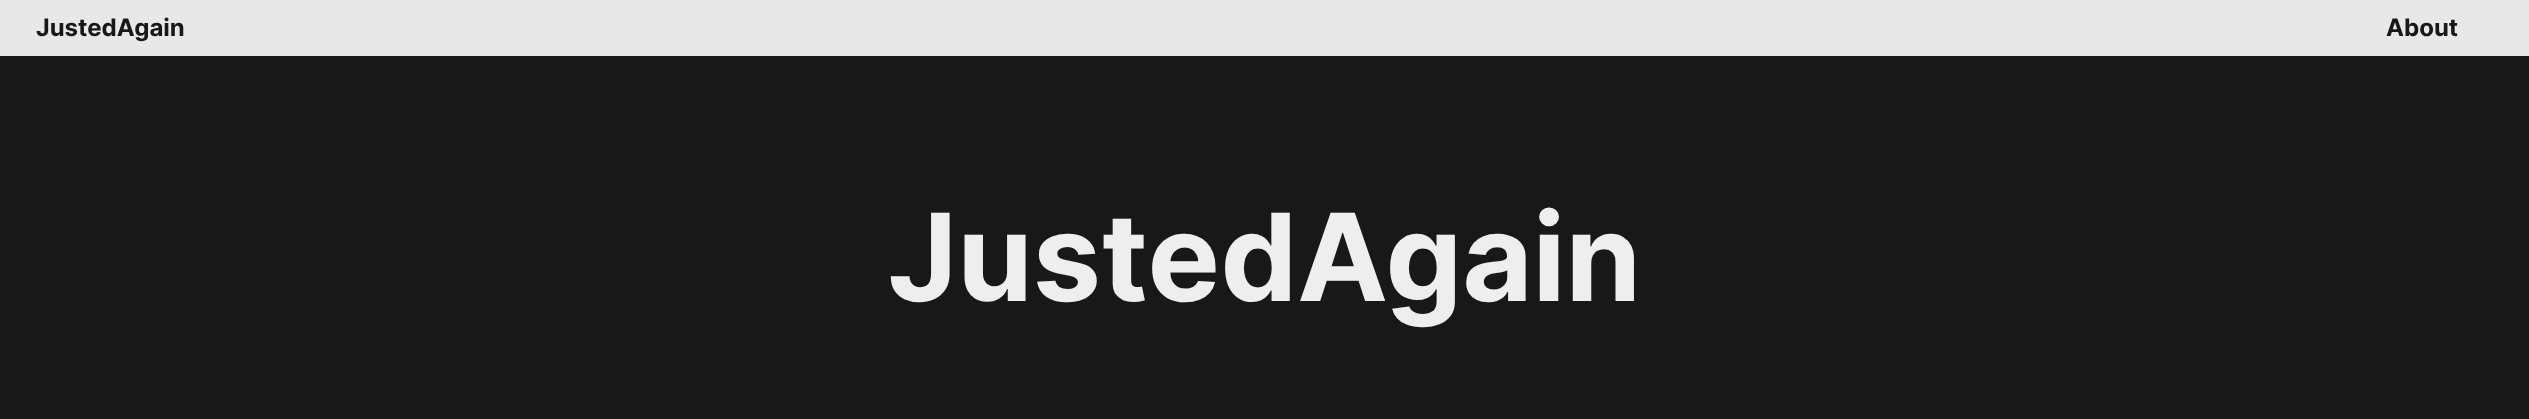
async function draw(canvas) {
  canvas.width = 2529
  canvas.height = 419
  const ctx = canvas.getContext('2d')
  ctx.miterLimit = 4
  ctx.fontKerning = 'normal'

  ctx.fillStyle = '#181818'
  ctx.fillRect(0, 0, 2529, 419)
  ctx.fillStyle = '#e8e8e8'
  ctx.fillRect(0, 0, 2529, 56)
  ctx.font = 'italic bold 24px Inter'
  ctx.fillStyle = '#181818'
  ctx.fillText('JustedAgain', 36, 36)
  ctx.fillText('About', 2386, 36)
  ctx.font = 'italic bold 121.5px Inter'
  ctx.fillStyle = '#eee'
  ctx.fillText('JustedAgain', 888, 301)
}

draw(document.querySelector('canvas'))
